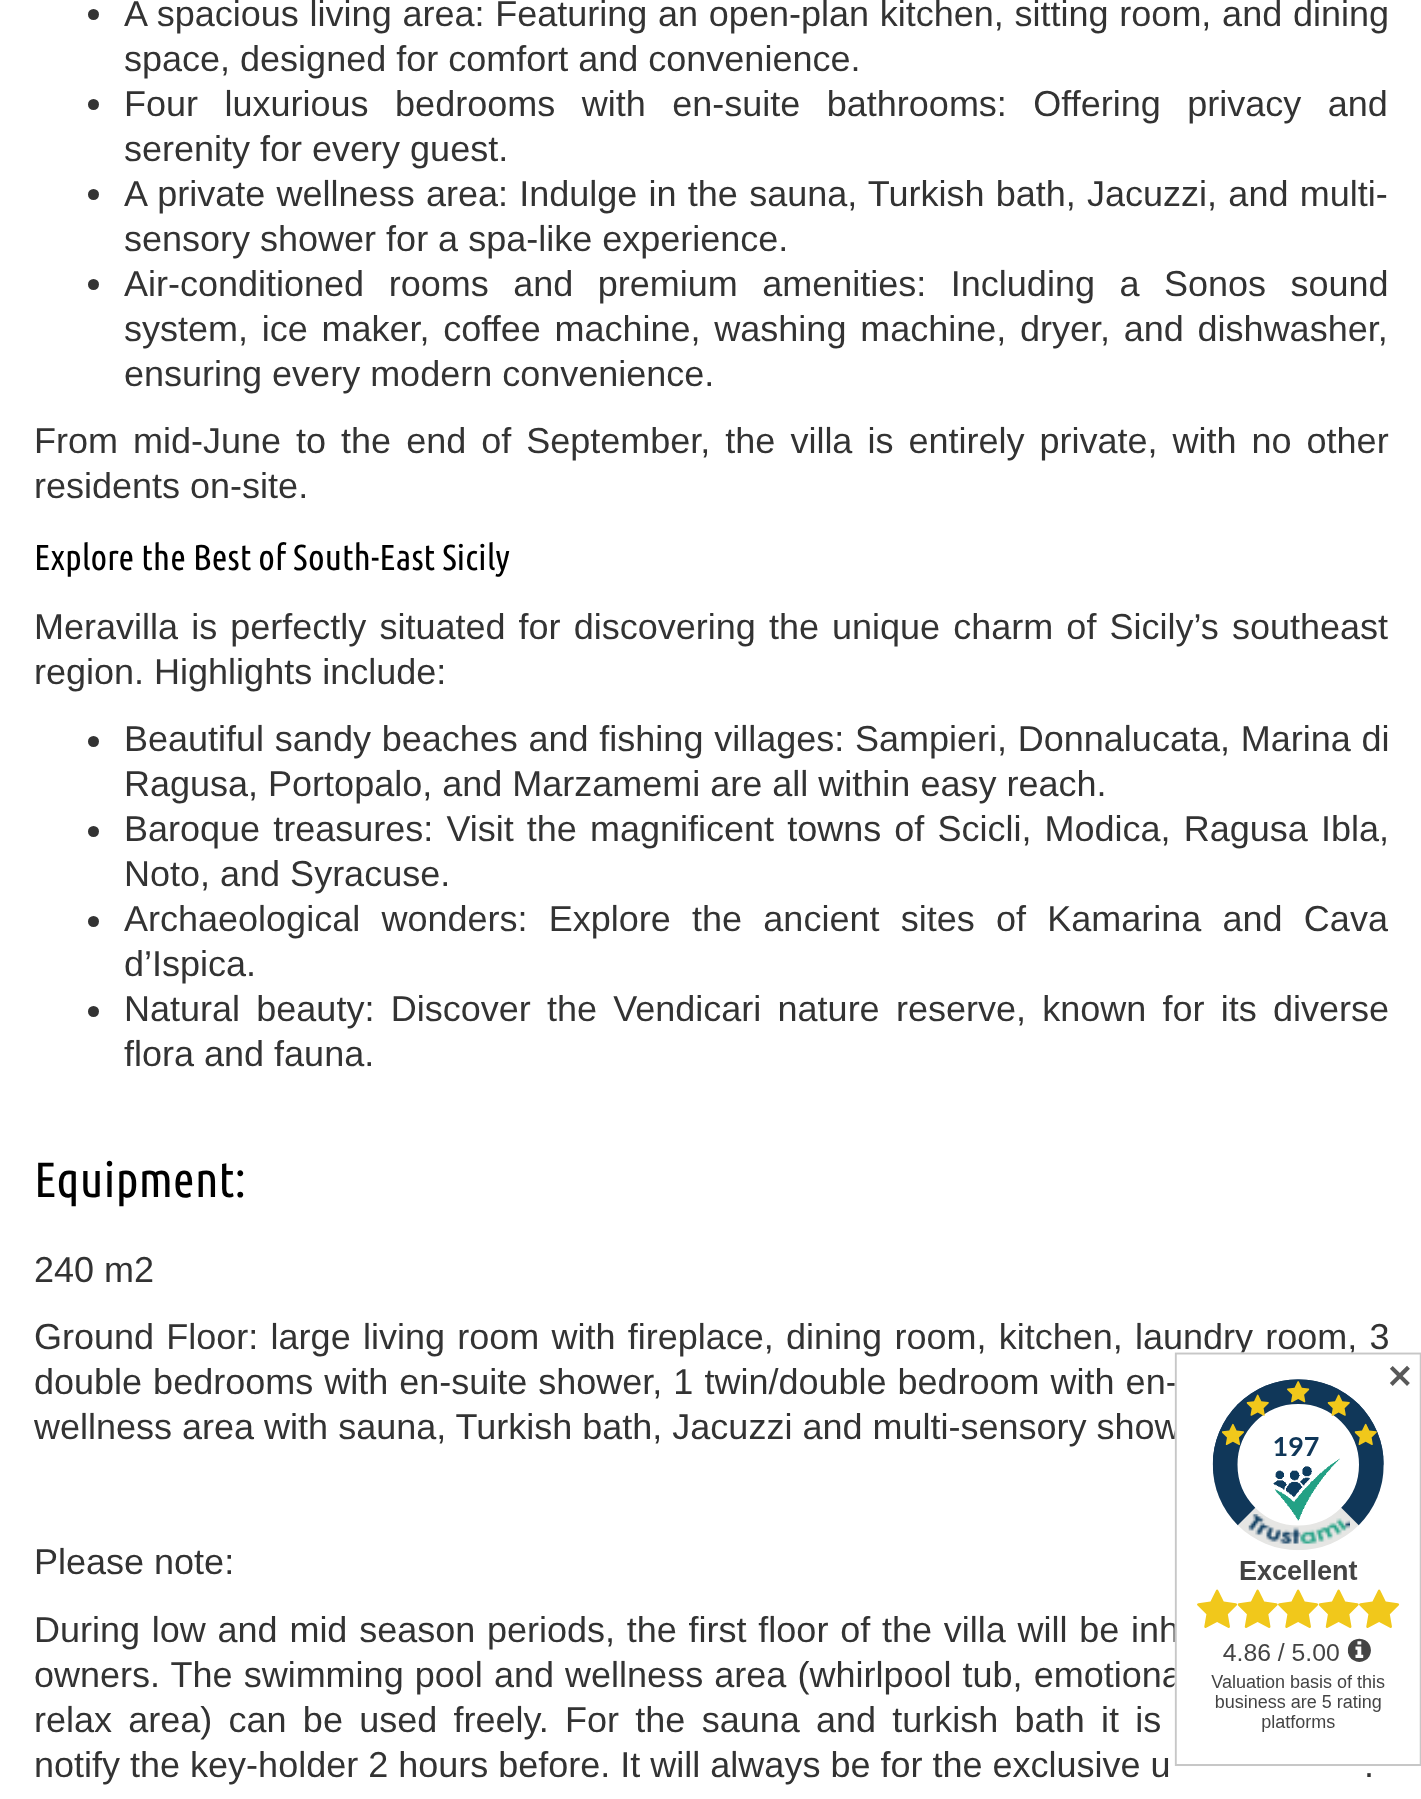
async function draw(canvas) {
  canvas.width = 1421
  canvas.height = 1799
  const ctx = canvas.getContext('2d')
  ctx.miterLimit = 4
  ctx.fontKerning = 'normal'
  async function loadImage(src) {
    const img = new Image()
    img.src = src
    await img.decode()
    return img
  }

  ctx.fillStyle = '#fff'
  ctx.fillRect(0, 0, 1421, 1799)
  ctx.fillStyle = '#333'
  ctx.beginPath()
  ctx.arc(93.5, 14.5, 5.5, 0, 2 * Math.PI)
  ctx.fill()
  ctx.wordSpacing = '0.75px'
  ctx.font = '36px Liberation Sans'
  ctx.fillText('A spacious living area: Featuring an open-plan kitchen, sitting room, and dining', 124, 26)
  ctx.wordSpacing = '0px'
  ctx.fillText('space, designed for comfort and convenience.', 124, 71)
  ctx.beginPath()
  ctx.arc(93.5, 104.5, 5.5, 0, 2 * Math.PI)
  ctx.fill()
  ctx.wordSpacing = '16.5px'
  ctx.fillText('Four luxurious bedrooms with en-suite bathrooms: Offering privacy and', 124, 116)
  ctx.wordSpacing = '0px'
  ctx.fillText('serenity for every guest.', 124, 161)
  ctx.beginPath()
  ctx.arc(93.5, 194.5, 5.5, 0, 2 * Math.PI)
  ctx.fill()
  ctx.wordSpacing = '1.25px'
  ctx.fillText('A private wellness area: Indulge in the sauna, Turkish bath, Jacuzzi, and multi-', 124, 206)
  ctx.wordSpacing = '0px'
  ctx.fillText('sensory shower for a spa-like experience.', 124, 251)
  ctx.beginPath()
  ctx.arc(93.5, 284.5, 5.5, 0, 2 * Math.PI)
  ctx.fill()
  ctx.wordSpacing = '14.5px'
  ctx.fillText('Air-conditioned rooms and premium amenities: Including a Sonos sound', 124, 296)
  ctx.wordSpacing = '3.75px'
  ctx.fillText('system, ice maker, coffee machine, washing machine, dryer, and dishwasher,', 124, 341)
  ctx.wordSpacing = '0px'
  ctx.fillText('ensuring every modern convenience.', 124, 386)
  ctx.wordSpacing = '5px'
  ctx.fillText('From mid-June to the end of September, the villa is entirely private, with no other', 34, 453)
  ctx.wordSpacing = '0px'
  ctx.fillText('residents on-site.', 34, 498)
  ctx.font = '36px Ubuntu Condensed'
  ctx.fillStyle = '#000'
  ctx.fillText('Explore the Best of South-East Sicily', 34, 570)
  ctx.wordSpacing = '3.1px'
  ctx.font = '36px Liberation Sans'
  ctx.fillStyle = '#333'
  ctx.fillText('Meravilla is perfectly situated for discovering the unique charm of Sicily’s southeast', 34, 639)
  ctx.wordSpacing = '0px'
  ctx.fillText('region. Highlights include:', 34, 684)
  ctx.beginPath()
  ctx.arc(93.5, 741.5, 5.5, 0, 2 * Math.PI)
  ctx.fill()
  ctx.wordSpacing = '0.75px'
  ctx.fillText('Beautiful sandy beaches and fishing villages: Sampieri, Donnalucata, Marina di', 124, 751)
  ctx.wordSpacing = '0px'
  ctx.fillText('Ragusa, Portopalo, and Marzamemi are all within easy reach.', 124, 796)
  ctx.beginPath()
  ctx.arc(93.5, 831.5, 5.5, 0, 2 * Math.PI)
  ctx.fill()
  ctx.wordSpacing = '3.1px'
  ctx.fillText('Baroque treasures: Visit the magnificent towns of Scicli, Modica, Ragusa Ibla,', 124, 841)
  ctx.wordSpacing = '0px'
  ctx.fillText('Noto, and Syracuse.', 124, 886)
  ctx.beginPath()
  ctx.arc(93.5, 921.5, 5.5, 0, 2 * Math.PI)
  ctx.fill()
  ctx.wordSpacing = '11.25px'
  ctx.fillText('Archaeological wonders: Explore the ancient sites of Kamarina and Cava', 124, 931)
  ctx.wordSpacing = '0px'
  ctx.fillText('d’Ispica.', 124, 976)
  ctx.beginPath()
  ctx.arc(93.5, 1011.5, 5.5, 0, 2 * Math.PI)
  ctx.fill()
  ctx.wordSpacing = '6.25px'
  ctx.fillText('Natural beauty: Discover the Vendicari nature reserve, known for its diverse', 124, 1021)
  ctx.wordSpacing = '0px'
  ctx.fillText('flora and fauna.', 124, 1066)
  ctx.font = '49.5px Ubuntu Condensed'
  ctx.fillStyle = '#000'
  ctx.fillText('Equipment:', 34, 1197)
  ctx.font = '36px Liberation Sans'
  ctx.fillStyle = '#333'
  ctx.fillText('240 m2', 34, 1282)
  ctx.wordSpacing = '2.25px'
  ctx.fillText('Ground Floor: large living room with fireplace, dining room, kitchen, laundry room, 3', 34, 1349)
  ctx.wordSpacing = '1px'
  ctx.fillText('double bedrooms with en-suite shower, 1 twin/double bedroom with en-', 34, 1394)
  ctx.wordSpacing = '0px'
  ctx.fillText('wellness area with sauna, Turkish bath, Jacuzzi and multi-sensory show', 34, 1439)
  ctx.fillText('Please note:', 34, 1574)
  ctx.wordSpacing = '1.75px'
  ctx.fillText('During low and mid season periods, the first floor of the villa will be inh', 34, 1642)
  ctx.wordSpacing = '1.1px'
  ctx.fillText('owners. The swimming pool and wellness area (whirlpool tub, emotiona', 34, 1687)
  ctx.wordSpacing = '6.25px'
  ctx.fillText('relax area) can be used freely. For the sauna and turkish bath it is', 34, 1732)
  ctx.wordSpacing = '0px'
  ctx.fillText('notify the key-holder 2 hours before. It will always be for the exclusive u', 34, 1777)
  ctx.fillText('.', 1364, 1777)
  ctx.drawImage(await loadImage('image0.png'), 1174, 1352, 247, 415)
  ctx.font = 'bold 32px DejaVu Sans'
  ctx.fillStyle = '#595959'
  ctx.fillText('✕', 1386, 1388)
}

draw(document.querySelector('canvas'))
